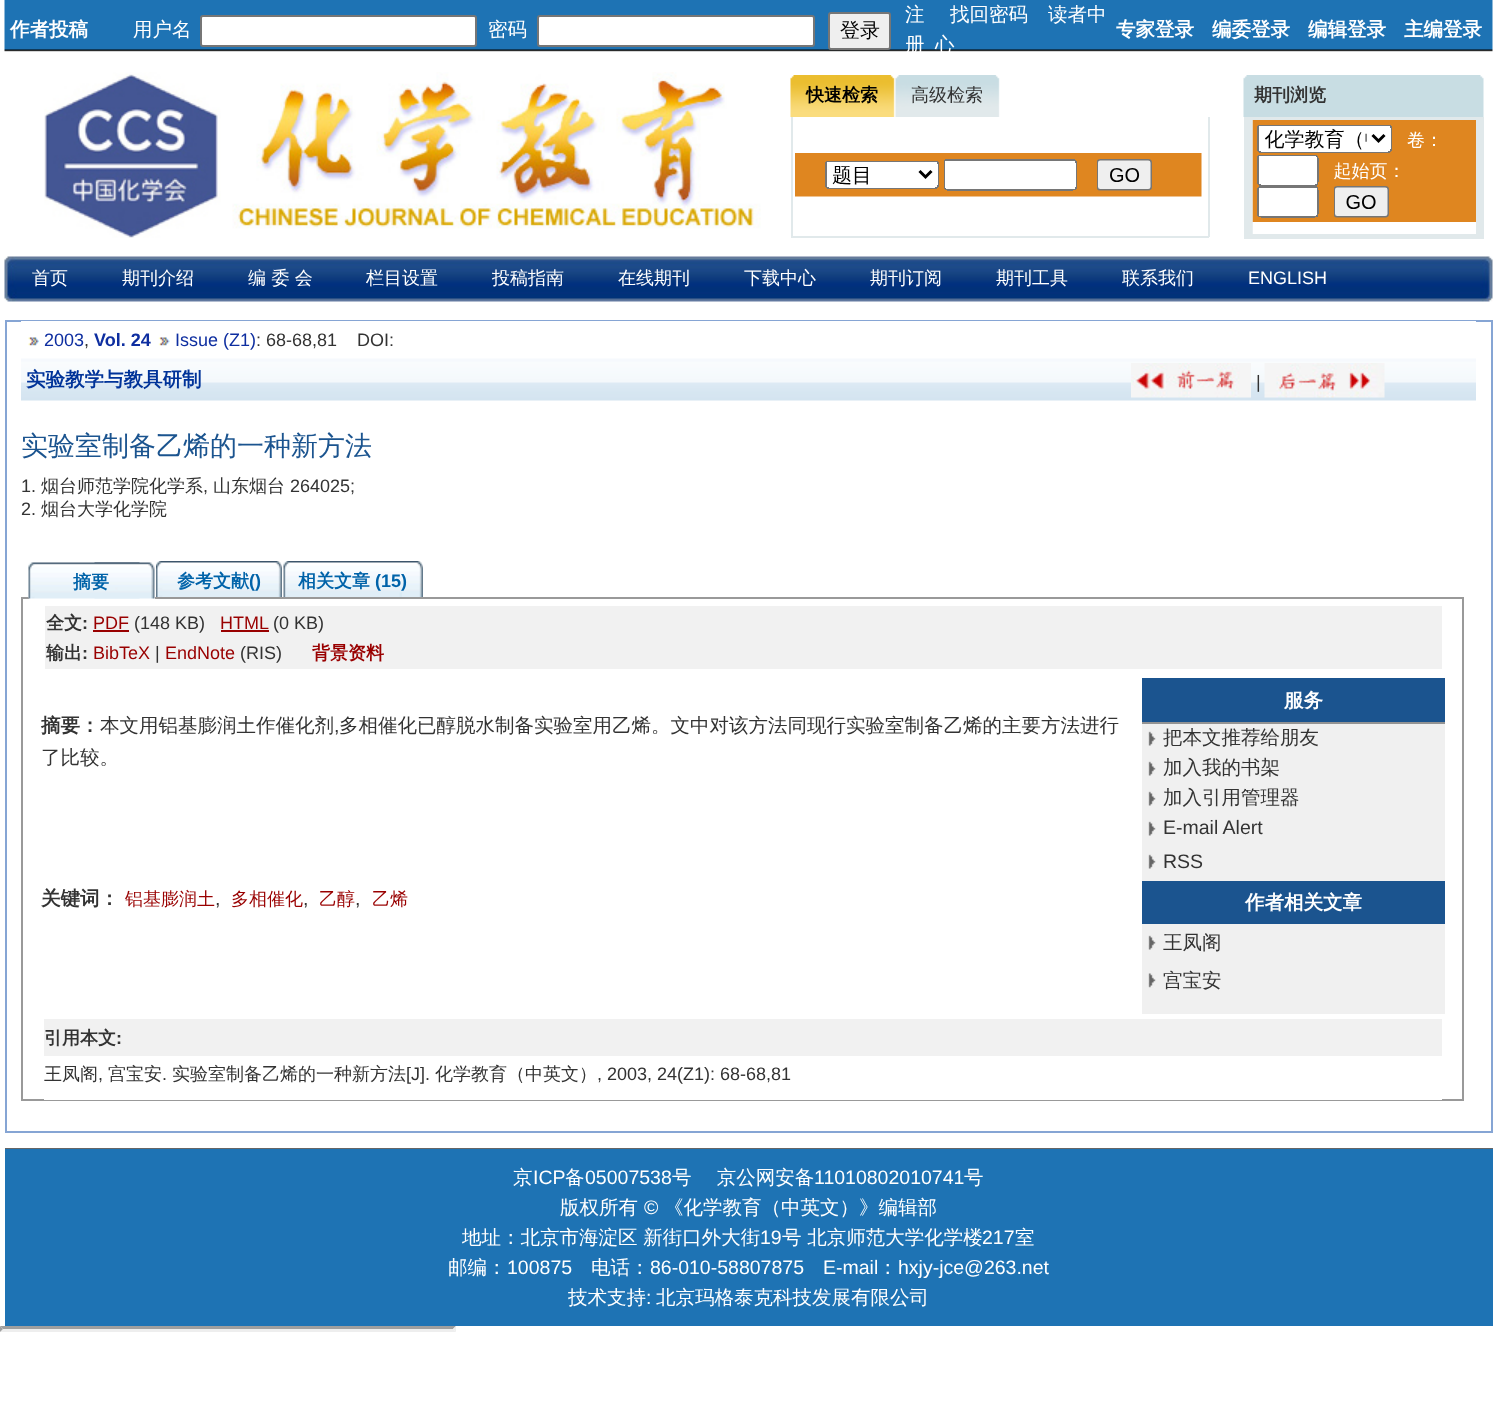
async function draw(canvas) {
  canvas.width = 1497
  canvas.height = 1426
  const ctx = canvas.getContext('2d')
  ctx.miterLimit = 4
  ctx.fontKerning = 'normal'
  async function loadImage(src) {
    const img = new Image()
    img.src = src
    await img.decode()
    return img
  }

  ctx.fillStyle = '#fff'
  ctx.fillRect(0, 0, 1497, 1426)
  ctx.drawImage(await loadImage('image0.png'), 4, 0, 1489, 52)
  ctx.font = 'bold 19.5px WenQuanYi Zen Hei'
  ctx.fillText('作者投稿', 10, 36)
  ctx.font = '500 19.5px WenQuanYi Zen Hei'
  ctx.fillText('用户名', 133, 36)
  ctx.beginPath()
  ctx.roundRect(201, 16, 275, 30, 2)
  ctx.fill()
  ctx.strokeStyle = '#767676'
  ctx.lineWidth = 2
  ctx.stroke()
  ctx.fillText('密码', 488, 36)
  ctx.beginPath()
  ctx.roundRect(538, 16, 276, 30, 2)
  ctx.fill()
  ctx.stroke()
  ctx.fillStyle = '#efefef'
  ctx.beginPath()
  ctx.roundRect(829, 13, 61, 36, 2)
  ctx.fill()
  ctx.stroke()
  ctx.font = '500 20px WenQuanYi Zen Hei'
  ctx.fillStyle = '#000'
  ctx.fillText('登录', 840, 37)
  ctx.font = '500 19.5px WenQuanYi Zen Hei'
  ctx.fillStyle = '#fff'
  ctx.fillText('注', 905, 21)
  ctx.fillText('册', 905, 51)
  ctx.fillText('找回密码', 950, 21)
  ctx.fillText('读者中', 1048, 21)
  ctx.fillText('心', 935, 51)
  ctx.font = 'bold 19.5px WenQuanYi Zen Hei'
  ctx.fillText('专家登录', 1116, 36)
  ctx.fillText('编委登录', 1212, 36)
  ctx.fillText('编辑登录', 1308, 36)
  ctx.fillText('主编登录', 1404, 36)
  ctx.drawImage(await loadImage('image1.png'), 44, 72, 717, 166)
  ctx.drawImage(await loadImage('image2.png'), 790, 75, 105, 42)
  ctx.font = 'bold 18px WenQuanYi Zen Hei'
  ctx.fillStyle = '#000'
  ctx.fillText('快速检索', 806, 101)
  ctx.drawImage(await loadImage('image3.png'), 895, 75, 105, 42)
  ctx.font = '500 18px WenQuanYi Zen Hei'
  ctx.fillStyle = '#333'
  ctx.fillText('高级检索', 911, 101)
  ctx.fillStyle = '#e1e9eb'
  ctx.fillRect(1208, 117, 2, 120)
  ctx.fillRect(791, 236, 418, 2)
  ctx.fillRect(791, 117, 2, 120)
  ctx.drawImage(await loadImage('image4.png'), 795, 153, 407, 44)
  ctx.drawImage(await loadImage('image5.png'), 1243, 75, 241, 42)
  ctx.font = 'bold 18px WenQuanYi Zen Hei'
  ctx.fillStyle = '#333'
  ctx.fillText('期刊浏览', 1254, 101)
  ctx.fillStyle = '#e1e9eb'
  ctx.fillRect(1244, 117, 240, 122)
  ctx.drawImage(await loadImage('image6.png'), 1252, 120, 224, 114)
  ctx.drawImage(await loadImage('image7.png'), 4, 256, 1489, 46)
  ctx.font = '500 18px WenQuanYi Zen Hei'
  ctx.fillStyle = '#fff'
  ctx.fillText('首页', 32, 284)
  ctx.fillText('期刊介绍', 122, 284)
  ctx.fillText('编 委 会', 248, 284)
  ctx.fillText('栏目设置', 366, 284)
  ctx.fillText('投稿指南', 492, 284)
  ctx.fillText('在线期刊', 618, 284)
  ctx.fillText('下载中心', 744, 284)
  ctx.fillText('期刊订阅', 870, 284)
  ctx.fillText('期刊工具', 996, 284)
  ctx.fillText('联系我们', 1122, 284)
  ctx.font = '18px Liberation Sans'
  ctx.fillText('ENGLISH', 1248, 284)
  ctx.strokeStyle = '#86a5d4'
  ctx.strokeRect(6, 321, 1486, 811)
  ctx.fillRect(21, 321, 1455, 1)
  ctx.drawImage(await loadImage('image8.png'), 28, 337, 11, 9)
  ctx.fillStyle = '#0e2ea0'
  ctx.fillText('2003', 44, 346)
  ctx.font = 'bold 18px Liberation Sans'
  ctx.fillText('Vol. 24', 94, 346)
  ctx.drawImage(await loadImage('image9.png'), 158, 337, 12, 9)
  ctx.font = '18px Liberation Sans'
  ctx.fillText('Issue (Z1)', 175, 346)
  ctx.fillStyle = '#333'
  ctx.fillText(': 68-68,81', 256, 346)
  ctx.fillText('DOI:', 357, 346)
  ctx.fillText(',', 84, 346)
  ctx.drawImage(await loadImage('image10.png'), 21, 358, 1455, 43)
  ctx.font = 'bold 19.5px WenQuanYi Zen Hei'
  ctx.fillStyle = '#039'
  ctx.fillText('实验教学与教具研制', 26, 386)
  ctx.drawImage(await loadImage('image11.png'), 1131, 363, 120, 35)
  ctx.font = '18px Liberation Sans'
  ctx.fillStyle = '#333'
  ctx.fillText('|', 1256, 388)
  ctx.drawImage(await loadImage('image12.png'), 1264, 363, 121, 35)
  ctx.font = '500 27px WenQuanYi Zen Hei'
  ctx.fillStyle = '#1b548f'
  ctx.fillText('实验室制备乙烯的一种新方法', 21, 455)
  ctx.font = '18px Liberation Sans'
  ctx.fillStyle = '#333'
  ctx.fillText('1.', 21, 492)
  ctx.font = '500 18px WenQuanYi Zen Hei'
  ctx.fillText('烟台师范学院化学系', 41, 492)
  ctx.font = '18px Liberation Sans'
  ctx.fillText(',', 203, 492)
  ctx.font = '500 18px WenQuanYi Zen Hei'
  ctx.fillText('山东烟台', 213, 492)
  ctx.font = '18px Liberation Sans'
  ctx.fillText('264025;', 290, 492)
  ctx.fillText('2.', 21, 515)
  ctx.font = '500 18px WenQuanYi Zen Hei'
  ctx.fillText('烟台大学化学院', 41, 515)
  ctx.strokeStyle = '#999'
  ctx.strokeRect(22, 598, 1441, 502)
  ctx.fillStyle = '#fff'
  ctx.fillRect(29, 597, 126, 2)
  ctx.drawImage(await loadImage('image13.png'), 28, 562, 127, 37)
  ctx.drawImage(await loadImage('image14.png'), 28, 562, 112, 37)
  ctx.font = 'bold 18px WenQuanYi Zen Hei'
  ctx.fillStyle = '#0063a9'
  ctx.fillText('摘要', 73, 588)
  ctx.drawImage(await loadImage('image15.png'), 223, 561, 59, 36)
  ctx.drawImage(await loadImage('image16.png'), 156, 561, 67, 36)
  ctx.fillText('参考文献', 177, 587)
  ctx.font = 'bold 18px Liberation Sans'
  ctx.fillText('()', 249, 587)
  ctx.drawImage(await loadImage('image17.png'), 402, 561, 21, 36)
  ctx.drawImage(await loadImage('image18.png'), 283, 561, 119, 36)
  ctx.font = 'bold 18px WenQuanYi Zen Hei'
  ctx.fillText('相关文章', 298, 587)
  ctx.font = 'bold 18px Liberation Sans'
  ctx.fillText('(15)', 375, 587)
  ctx.fillStyle = '#f1f1f1'
  ctx.fillRect(45, 606, 1397, 63)
  ctx.font = 'bold 18px WenQuanYi Zen Hei'
  ctx.fillStyle = '#333'
  ctx.fillText('全文', 46, 629)
  ctx.font = 'bold 18px Liberation Sans'
  ctx.fillText(':', 82, 629)
  ctx.font = '18px Liberation Sans'
  ctx.fillStyle = '#900'
  ctx.fillText('PDF', 93, 629)
  ctx.fillRect(93, 630, 36, 2)
  ctx.fillStyle = '#333'
  ctx.fillText('(148 KB)', 134, 629)
  ctx.fillStyle = '#900'
  ctx.fillText('HTML', 220, 629)
  ctx.fillRect(221, 630, 48, 2)
  ctx.fillStyle = '#333'
  ctx.fillText('(0 KB)', 273, 629)
  ctx.font = 'bold 18px WenQuanYi Zen Hei'
  ctx.fillText('输出', 46, 659)
  ctx.font = 'bold 18px Liberation Sans'
  ctx.fillText(':', 82, 659)
  ctx.font = '18px Liberation Sans'
  ctx.fillStyle = '#900'
  ctx.fillText('BibTeX', 93, 659)
  ctx.fillStyle = '#333'
  ctx.fillText('|', 155, 659)
  ctx.fillStyle = '#900'
  ctx.fillText('EndNote', 165, 659)
  ctx.fillStyle = '#333'
  ctx.fillText('(RIS)', 240, 659)
  ctx.font = 'bold 18px WenQuanYi Zen Hei'
  ctx.fillStyle = '#900'
  ctx.fillText('背景资料', 312, 659)
  ctx.font = 'bold 19.5px WenQuanYi Zen Hei'
  ctx.fillStyle = '#333'
  ctx.fillText('摘要：', 41, 732)
  ctx.font = '500 19.5px WenQuanYi Zen Hei'
  ctx.fillText('本文用铝基膨润土作催化剂', 100, 732)
  ctx.font = '19.5px Liberation Sans'
  ctx.fillText(',', 334, 732)
  ctx.font = '500 19.5px WenQuanYi Zen Hei'
  ctx.fillText('多相催化已醇脱水制备实验室用乙烯。文中对该方法同现行实验室制备乙烯的主要方法进行', 339, 732)
  ctx.fillText('了比较。', 41, 764)
  ctx.fillStyle = '#f0f0f0'
  ctx.fillRect(1142, 724, 303, 290)
  ctx.fillStyle = '#1b548f'
  ctx.fillRect(1142, 678, 303, 44)
  ctx.font = 'bold 19.5px WenQuanYi Zen Hei'
  ctx.fillStyle = '#fff'
  ctx.fillText('服务', 1284, 707)
  ctx.fillStyle = '#939393'
  ctx.fillRect(1142, 722, 303, 2)
  ctx.drawImage(await loadImage('image19.png'), 1148, 731, 8, 15)
  ctx.font = '500 19.5px WenQuanYi Zen Hei'
  ctx.fillStyle = '#333'
  ctx.fillText('把本文推荐给朋友', 1163, 744)
  ctx.drawImage(await loadImage('image19.png'), 1148, 761, 8, 15)
  ctx.fillText('加入我的书架', 1163, 774)
  ctx.drawImage(await loadImage('image19.png'), 1148, 791, 8, 15)
  ctx.fillText('加入引用管理器', 1163, 804)
  ctx.drawImage(await loadImage('image19.png'), 1148, 821, 8, 15)
  ctx.font = '19.5px Liberation Sans'
  ctx.fillText('E-mail Alert', 1163, 834)
  ctx.drawImage(await loadImage('image19.png'), 1148, 854, 8, 15)
  ctx.fillText('RSS', 1163, 868)
  ctx.fillStyle = '#1b548f'
  ctx.fillRect(1142, 881, 303, 43)
  ctx.font = 'bold 19.5px WenQuanYi Zen Hei'
  ctx.fillStyle = '#fff'
  ctx.fillText('作者相关文章', 1245, 909)
  ctx.drawImage(await loadImage('image19.png'), 1148, 935, 8, 15)
  ctx.font = '500 19.5px WenQuanYi Zen Hei'
  ctx.fillStyle = '#333'
  ctx.fillText('王凤阁', 1163, 949)
  ctx.drawImage(await loadImage('image20.png'), 1148, 973, 8, 15)
  ctx.fillText('宫宝安', 1163, 987)
  ctx.font = 'bold 19.5px WenQuanYi Zen Hei'
  ctx.fillText('关键词：', 41, 905)
  ctx.font = '500 18px WenQuanYi Zen Hei'
  ctx.fillStyle = '#900'
  ctx.fillText('铝基膨润土', 125, 905)
  ctx.font = '19.5px Liberation Sans'
  ctx.fillStyle = '#333'
  ctx.fillText(',', 215, 905)
  ctx.font = '500 18px WenQuanYi Zen Hei'
  ctx.fillStyle = '#900'
  ctx.fillText('多相催化', 231, 905)
  ctx.font = '19.5px Liberation Sans'
  ctx.fillStyle = '#333'
  ctx.fillText(',', 303, 905)
  ctx.font = '500 18px WenQuanYi Zen Hei'
  ctx.fillStyle = '#900'
  ctx.fillText('乙醇', 319, 905)
  ctx.font = '19.5px Liberation Sans'
  ctx.fillStyle = '#333'
  ctx.fillText(',', 355, 905)
  ctx.font = '500 18px WenQuanYi Zen Hei'
  ctx.fillStyle = '#900'
  ctx.fillText('乙烯', 372, 905)
  ctx.fillStyle = '#fff'
  ctx.fillRect(44, 1099, 1398, 1)
  ctx.fillStyle = '#f1f1f1'
  ctx.fillRect(44, 1019, 1398, 37)
  ctx.font = 'bold 18px WenQuanYi Zen Hei'
  ctx.fillStyle = '#333'
  ctx.fillText('引用本文', 44, 1044)
  ctx.font = 'bold 18px Liberation Sans'
  ctx.fillText(':', 116, 1044)
  ctx.font = '500 18px WenQuanYi Zen Hei'
  ctx.fillText('王凤阁', 44, 1080)
  ctx.font = '18px Liberation Sans'
  ctx.fillText(',', 98, 1080)
  ctx.font = '500 18px WenQuanYi Zen Hei'
  ctx.fillText('宫宝安', 108, 1080)
  ctx.font = '18px Liberation Sans'
  ctx.fillText('.', 162, 1080)
  ctx.font = '500 18px WenQuanYi Zen Hei'
  ctx.fillText('实验室制备乙烯的一种新方法', 172, 1080)
  ctx.font = '18px Liberation Sans'
  ctx.fillText('[J].', 406, 1080)
  ctx.font = '500 18px WenQuanYi Zen Hei'
  ctx.fillText('化学教育（中英文）', 435, 1080)
  ctx.font = '18px Liberation Sans'
  ctx.fillText(', 2003, 24(Z1): 68-68,81', 597, 1080)
  ctx.fillStyle = '#666'
  ctx.fillRect(5, 1148, 1488, 1)
  ctx.fillStyle = '#1e73b4'
  ctx.fillRect(5, 1149, 1488, 177)
  ctx.font = '500 19.5px WenQuanYi Zen Hei'
  ctx.fillStyle = '#fff'
  ctx.fillText('京', 513, 1184)
  ctx.font = '19.5px Liberation Sans'
  ctx.fillText('ICP', 533, 1184)
  ctx.font = '500 19.5px WenQuanYi Zen Hei'
  ctx.fillText('备', 565, 1184)
  ctx.font = '19.5px Liberation Sans'
  ctx.fillText('05007538', 585, 1184)
  ctx.font = '500 19.5px WenQuanYi Zen Hei'
  ctx.fillText('号 　京公网安备', 672, 1184)
  ctx.font = '19.5px Liberation Sans'
  ctx.fillText('11010802010741', 814, 1184)
  ctx.font = '500 19.5px WenQuanYi Zen Hei'
  ctx.fillText('号', 964, 1184)
  ctx.fillText('版权所有', 560, 1214)
  ctx.font = '19.5px Liberation Sans'
  ctx.fillText('©', 644, 1214)
  ctx.font = '500 19.5px WenQuanYi Zen Hei'
  ctx.fillText('《化学教育（中英文）》编辑部', 664, 1214)
  ctx.fillText('地址：北京市海淀区 新街口外大街', 462, 1244)
  ctx.font = '19.5px Liberation Sans'
  ctx.fillText('19', 760, 1244)
  ctx.font = '500 19.5px WenQuanYi Zen Hei'
  ctx.fillText('号 北京师范大学化学楼', 782, 1244)
  ctx.font = '19.5px Liberation Sans'
  ctx.fillText('217', 982, 1244)
  ctx.font = '500 19.5px WenQuanYi Zen Hei'
  ctx.fillText('室', 1015, 1244)
  ctx.fillText('邮编：', 448, 1274)
  ctx.font = '19.5px Liberation Sans'
  ctx.fillText('100875', 507, 1274)
  ctx.font = '500 19.5px WenQuanYi Zen Hei'
  ctx.fillText('电话：', 591, 1274)
  ctx.font = '19.5px Liberation Sans'
  ctx.fillText('86-010-58807875', 650, 1274)
  ctx.fillText('E-mail', 823, 1274)
  ctx.font = '500 19.5px WenQuanYi Zen Hei'
  ctx.fillText('：', 878, 1274)
  ctx.font = '19.5px Liberation Sans'
  ctx.fillText('hxjy-jce@263.net', 898, 1274)
  ctx.font = '500 19.5px WenQuanYi Zen Hei'
  ctx.fillText('技术支持', 568, 1304)
  ctx.font = '19.5px Liberation Sans'
  ctx.fillText(':', 646, 1304)
  ctx.font = '500 19.5px WenQuanYi Zen Hei'
  ctx.fillText('北京玛格泰克科技发展有限公司', 656, 1304)
  ctx.fillStyle = '#9f9f9f'
  ctx.beginPath()
  ctx.moveTo(0, 1326)
  ctx.lineTo(456, 1326)
  ctx.lineTo(453, 1329)
  ctx.lineTo(3, 1329)
  ctx.closePath()
  ctx.fill()
  ctx.fillStyle = '#eee'
  ctx.beginPath()
  ctx.moveTo(456, 1326)
  ctx.lineTo(456, 1332)
  ctx.lineTo(453, 1329)
  ctx.closePath()
  ctx.fill()
  ctx.beginPath()
  ctx.moveTo(456, 1332)
  ctx.lineTo(0, 1332)
  ctx.lineTo(3, 1329)
  ctx.lineTo(453, 1329)
  ctx.closePath()
  ctx.fill()
  ctx.fillStyle = '#9f9f9f'
  ctx.beginPath()
  ctx.moveTo(0, 1332)
  ctx.lineTo(0, 1326)
  ctx.lineTo(3, 1329)
  ctx.closePath()
  ctx.fill()
}

draw(document.querySelector('canvas'))
